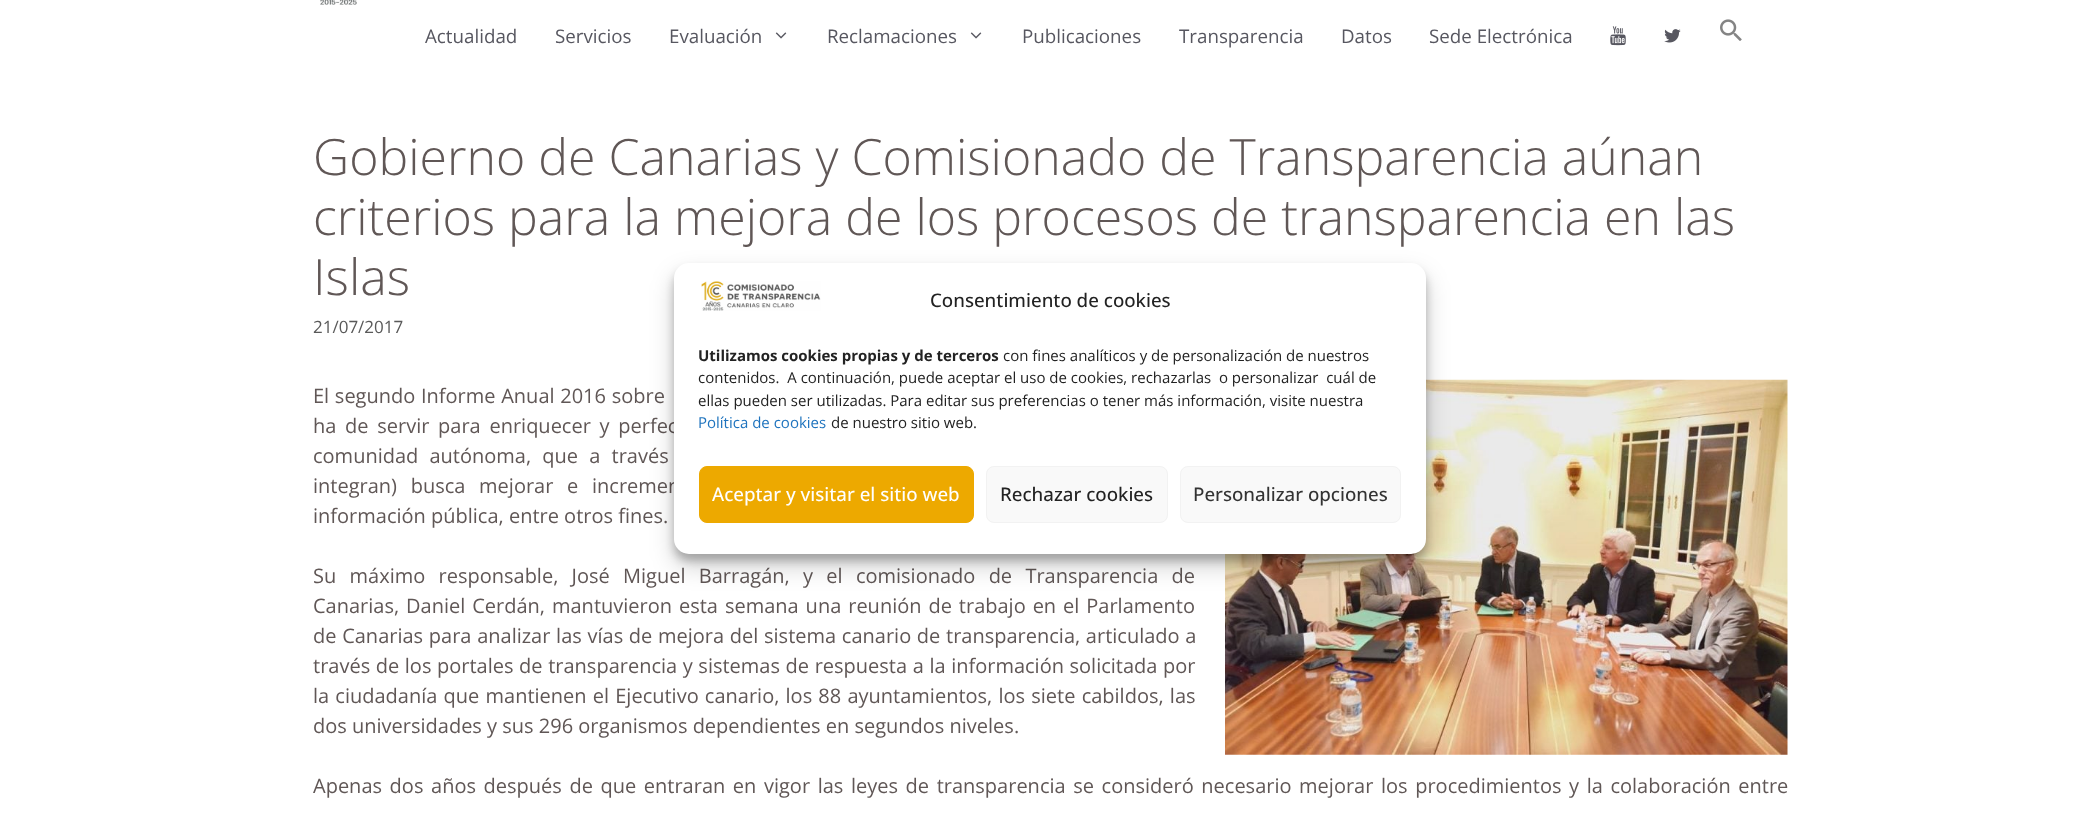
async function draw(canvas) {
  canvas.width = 2099
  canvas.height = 814
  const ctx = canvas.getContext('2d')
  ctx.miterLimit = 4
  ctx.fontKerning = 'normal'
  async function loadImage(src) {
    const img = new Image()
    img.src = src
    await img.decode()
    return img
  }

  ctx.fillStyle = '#fff'
  ctx.fillRect(0, 0, 2099, 814)
  ctx.drawImage(await loadImage('image0.png'), 320, 0, 37, 5)
  ctx.font = '18.75px Open Sans'
  ctx.fillStyle = '#575760'
  ctx.fillText('Actualidad', 425, 43)
  ctx.fillText('Servicios', 555, 43)
  ctx.fillText('Evaluación', 669, 43)
  ctx.drawImage(await loadImage('image1.png'), 775, 32, 12, 7)
  ctx.fillText('Reclamaciones', 827, 43)
  ctx.drawImage(await loadImage('image1.png'), 970, 32, 12, 7)
  ctx.fillText('Publicaciones', 1022, 43)
  ctx.fillText('Transparencia', 1179, 43)
  ctx.fillText('Datos', 1341, 43)
  ctx.fillText('Sede Electrónica', 1429, 43)
  ctx.drawImage(await loadImage('image2.png'), 1610, 26, 16, 20)
  ctx.drawImage(await loadImage('image3.png'), 1664, 29, 17, 14)
  ctx.drawImage(await loadImage('image4.png'), 1720, 19, 22, 22)
  ctx.font = '300 50px Open Sans'
  ctx.fillStyle = '#605756'
  ctx.fillText('Gobierno de Canarias y Comisionado de Transparencia aúnan', 313, 175)
  ctx.fillText('criterios para la mejora de los procesos de transparencia en las', 313, 235)
  ctx.fillText('Islas', 313, 295)
  ctx.font = '17px Open Sans'
  ctx.fillStyle = '#595959'
  ctx.fillText('21/07/2017', 313, 333)
  ctx.wordSpacing = '0.5px'
  ctx.font = '20px Open Sans'
  ctx.fillStyle = '#605756'
  ctx.fillText('El segundo Informe Anual 2016 sobre', 313, 403)
  ctx.drawImage(await loadImage('image5.png'), 1225, 379, 563, 376)
  ctx.wordSpacing = '3.5px'
  ctx.fillText('ha de servir para enriquecer y perfec', 313, 433)
  ctx.wordSpacing = '6px'
  ctx.fillText('comunidad autónoma, que a través', 313, 463)
  ctx.wordSpacing = '8.5px'
  ctx.fillText('integran) busca mejorar e incremen', 313, 493)
  ctx.wordSpacing = '0px'
  ctx.fillText('información pública, entre otros fines.', 313, 523)
  ctx.wordSpacing = '8.1px'
  ctx.fillText('Su máximo responsable, José Miguel Barragán, y el comisionado de Transparencia de', 313, 583)
  ctx.wordSpacing = '1.75px'
  ctx.fillText('Canarias, Daniel Cerdán, mantuvieron esta semana una reunión de trabajo en el Parlamento', 313, 613)
  ctx.wordSpacing = '0.5px'
  ctx.fillText('de Canarias para analizar las vías de mejora del sistema canario de transparencia, articulado a', 313, 643)
  ctx.wordSpacing = '0.4px'
  ctx.fillText('través de los portales de transparencia y sistemas de respuesta a la información solicitada por', 313, 673)
  ctx.wordSpacing = '1px'
  ctx.fillText('la ciudadanía que mantienen el Ejecutivo canario, los 88 ayuntamientos, los siete cabildos, las', 313, 703)
  ctx.wordSpacing = '0px'
  ctx.fillText('dos universidades y sus 296 organismos dependientes en segundos niveles.', 313, 733)
  ctx.wordSpacing = '2.4px'
  ctx.fillText('Apenas dos años después de que entraran en vigor las leyes de transparencia se consideró necesario mejorar los procedimientos y la colaboración entre', 313, 793)
  ctx.fillStyle = '#0000003b'
  ctx.filter = 'blur(4px)'
  ctx.beginPath()
  ctx.roundRect(674, 270, 752, 291, 15)
  ctx.fill()
  ctx.filter = 'none'
  ctx.fillStyle = '#00000030'
  ctx.filter = 'blur(12.5px)'
  ctx.beginPath()
  ctx.roundRect(674, 275, 752, 291, 15)
  ctx.fill()
  ctx.filter = 'none'
  ctx.fillStyle = '#fff'
  ctx.beginPath()
  ctx.roundRect(674, 263, 752, 291, 15)
  ctx.fill()
  ctx.drawImage(await loadImage('image6.png'), 701, 281, 120, 30)
  ctx.wordSpacing = '0px'
  ctx.font = '500 18.75px Open Sans'
  ctx.fillStyle = '#222'
  ctx.fillText('Consentimiento de cookies', 930, 307)
  ctx.font = 'bold 15px Open Sans'
  ctx.fillText('Utilizamos cookies propias y de terceros', 698, 361)
  ctx.font = '15px Open Sans'
  ctx.fillText('con fines analíticos y de personalización de nuestros', 1003, 361)
  ctx.fillText('contenidos.  A continuación, puede aceptar el uso de cookies, rechazarlas  o personalizar  cuál de', 698, 383)
  ctx.fillText('ellas pueden ser utilizadas. Para editar sus preferencias o tener más información, visite nuestra', 698, 406)
  ctx.fillStyle = '#1e73be'
  ctx.fillText('Política de cookies', 698, 428)
  ctx.fillStyle = '#222'
  ctx.fillText('de nuestro sitio web.', 831, 428)
  ctx.fillStyle = '#eda900'
  ctx.beginPath()
  ctx.roundRect(699.5, 466.5, 274, 56, 7.5)
  ctx.fill()
  ctx.strokeStyle = '#eda900'
  ctx.stroke()
  ctx.font = '500 18.75px Open Sans'
  ctx.fillStyle = '#fff'
  ctx.fillText('Aceptar y visitar el sitio web', 712, 501)
  ctx.fillStyle = '#f9f9f9'
  ctx.beginPath()
  ctx.roundRect(986.5, 466.5, 181, 56, 7.5)
  ctx.fill()
  ctx.strokeStyle = '#f2f2f2'
  ctx.stroke()
  ctx.fillStyle = '#222'
  ctx.fillText('Rechazar cookies', 1000, 501)
  ctx.fillStyle = '#f9f9f9'
  ctx.beginPath()
  ctx.roundRect(1180.5, 466.5, 220, 56, 7.5)
  ctx.fill()
  ctx.stroke()
  ctx.fillStyle = '#333'
  ctx.fillText('Personalizar opciones', 1193, 501)
}

draw(document.querySelector('canvas'))
